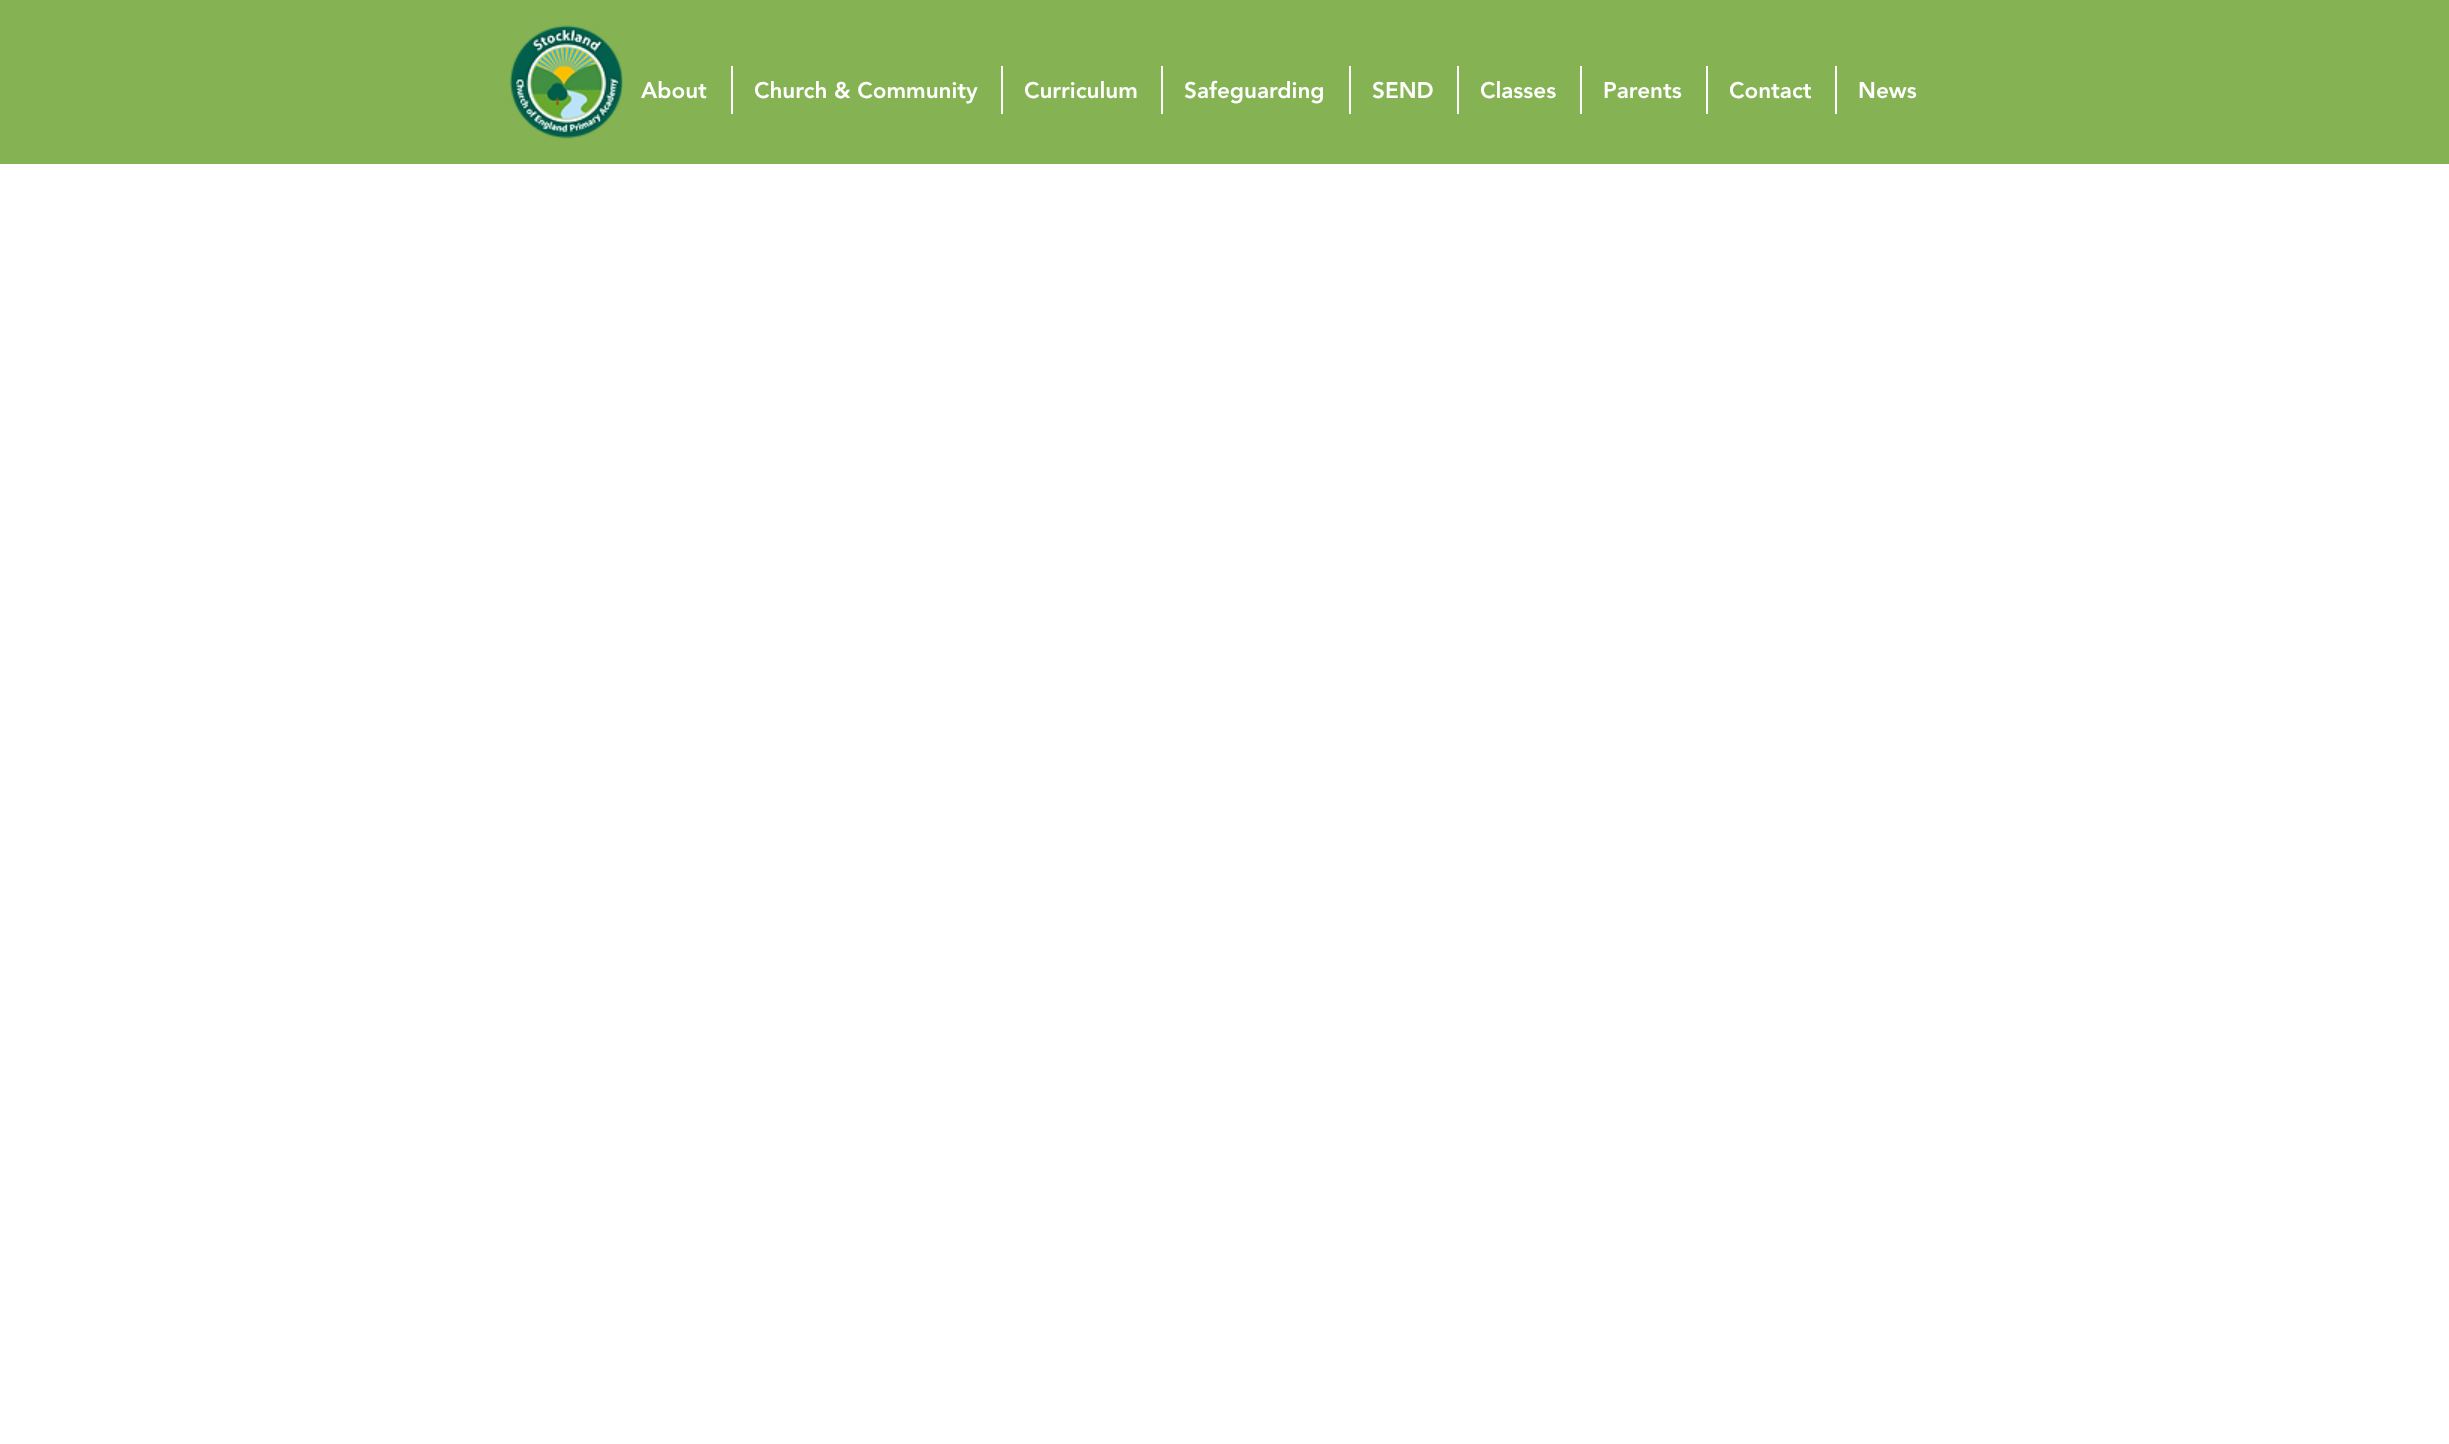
async function draw(canvas) {
  canvas.width = 2449
  canvas.height = 1444
  const ctx = canvas.getContext('2d')
  ctx.miterLimit = 4
  ctx.fontKerning = 'normal'
  async function loadImage(src) {
    const img = new Image()
    img.src = src
    await img.decode()
    return img
  }

  ctx.fillStyle = '#85b354'
  ctx.fillRect(0, 0, 2449, 1444)
  ctx.drawImage(await loadImage('image0.png'), 510, 25, 113, 114)
  ctx.font = '900 22.5px "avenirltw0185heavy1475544"'
  ctx.fillStyle = '#fff'
  ctx.fillText('About', 641, 98)
  ctx.fillRect(731, 66, 2, 48)
  ctx.fillText('Church & Community', 754, 98)
  ctx.fillRect(1001, 66, 2, 48)
  ctx.fillText('Curriculum', 1024, 98)
  ctx.fillRect(1161, 66, 2, 48)
  ctx.fillText('Safeguarding', 1184, 98)
  ctx.fillRect(1349, 66, 2, 48)
  ctx.fillText('SEND', 1372, 98)
  ctx.fillRect(1457, 66, 2, 48)
  ctx.fillText('Classes', 1480, 98)
  ctx.fillRect(1580, 66, 2, 48)
  ctx.fillText('Parents', 1603, 98)
  ctx.fillRect(1706, 66, 2, 48)
  ctx.fillText('Contact', 1729, 98)
  ctx.fillRect(1835, 66, 2, 48)
  ctx.fillText('News', 1858, 98)
  ctx.fillRect(0, 164, 2449, 1280)
}

draw(document.querySelector('canvas'))
